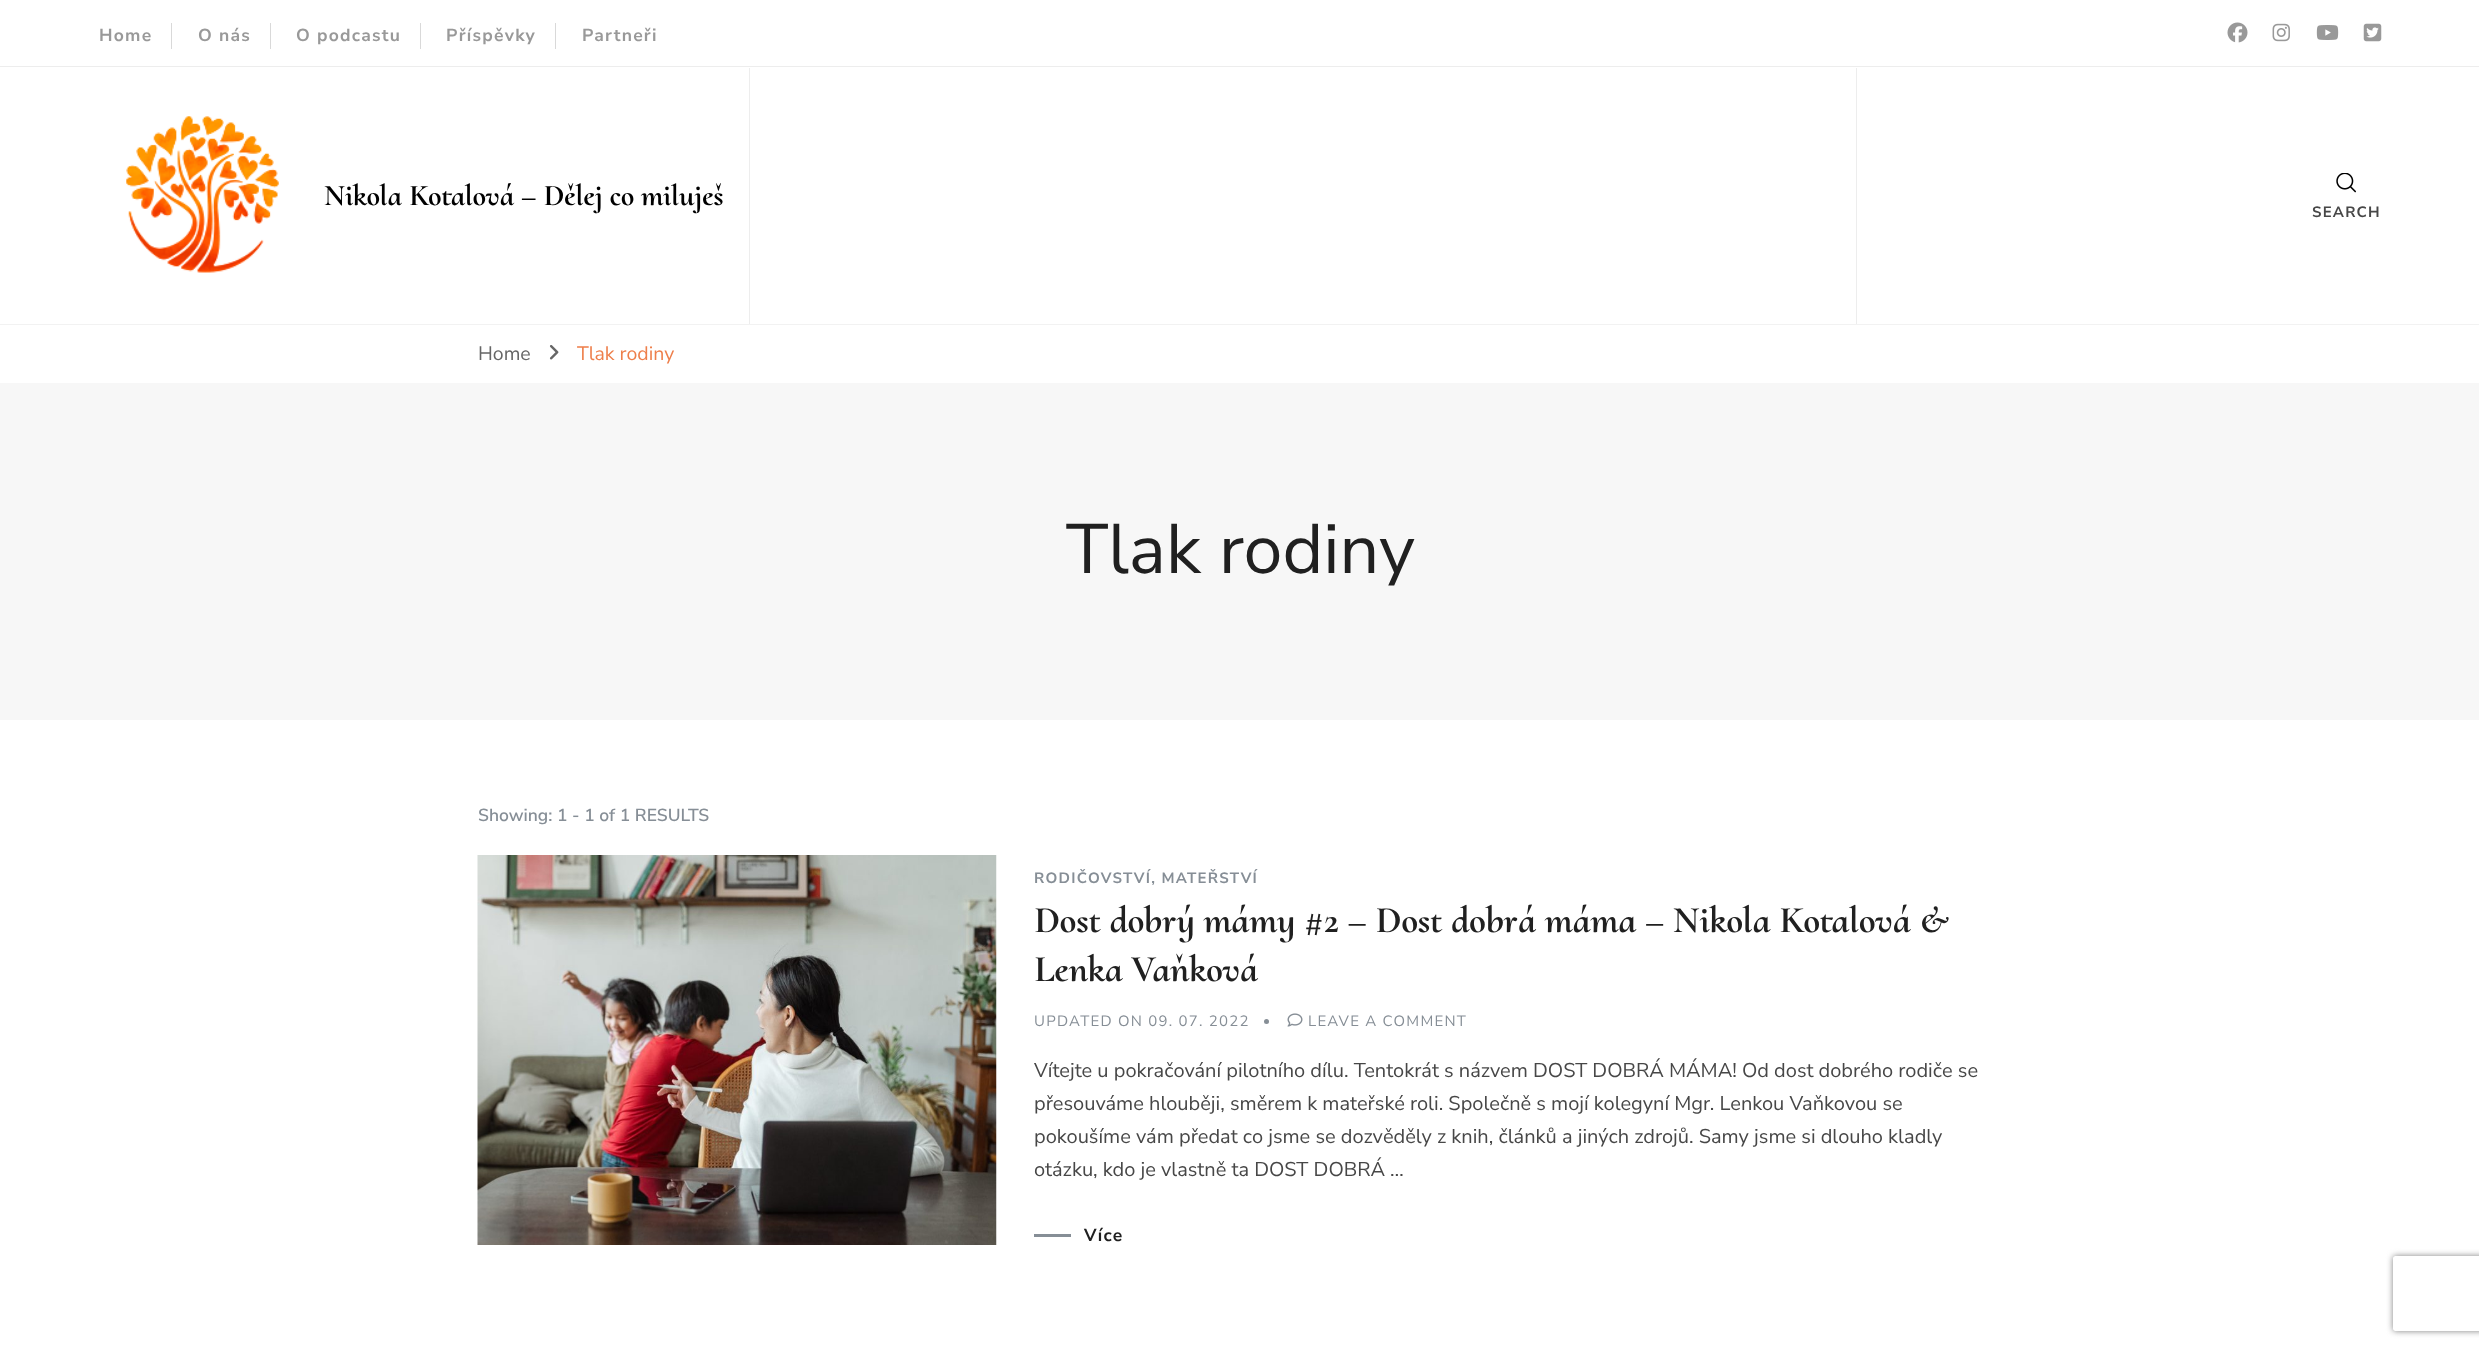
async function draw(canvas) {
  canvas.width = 2479
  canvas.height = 1348
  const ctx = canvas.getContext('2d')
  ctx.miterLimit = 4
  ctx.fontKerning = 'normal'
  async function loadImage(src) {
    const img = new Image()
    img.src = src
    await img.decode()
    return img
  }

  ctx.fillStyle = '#fff'
  ctx.fillRect(0, 0, 2479, 1348)
  ctx.fillStyle = '#ededed'
  ctx.fillRect(0, 66, 2479, 1)
  ctx.fillStyle = '#d9d9d9'
  ctx.fillRect(171, 23, 1, 26)
  ctx.letterSpacing = '1.25px'
  ctx.font = 'bold 17.5px Nunito Sans'
  ctx.fillStyle = '#999'
  ctx.fillText('Home', 99, 41)
  ctx.fillStyle = '#d9d9d9'
  ctx.fillRect(270, 23, 1, 26)
  ctx.fillStyle = '#999'
  ctx.fillText('O nás', 198, 41)
  ctx.fillStyle = '#d9d9d9'
  ctx.fillRect(420, 23, 1, 26)
  ctx.fillStyle = '#999'
  ctx.fillText('O podcastu', 296, 41)
  ctx.fillStyle = '#d9d9d9'
  ctx.fillRect(555, 23, 1, 26)
  ctx.fillStyle = '#999'
  ctx.fillText('Příspěvky', 446, 41)
  ctx.fillText('Partneři', 582, 41)
  ctx.drawImage(await loadImage('image0.png'), 2227, 22, 21, 21)
  ctx.drawImage(await loadImage('image1.png'), 2272, 23, 18, 19)
  ctx.drawImage(await loadImage('image2.png'), 2316, 25, 23, 15)
  ctx.drawImage(await loadImage('image3.png'), 2363, 23, 19, 19)
  ctx.fillStyle = '#f2f2f2'
  ctx.fillRect(0, 324, 2479, 1)
  ctx.fillStyle = '#ededed'
  ctx.fillRect(749, 68, 1, 256)
  ctx.drawImage(await loadImage('image4.png'), 126, 116, 153, 157)
  ctx.letterSpacing = '0px'
  ctx.font = 'bold 30px Cormorant Upright'
  ctx.fillStyle = '#000'
  ctx.fillText('Nikola Kotalová – Dělej co miluješ', 324, 205)
  ctx.fillStyle = '#ededed'
  ctx.fillRect(1856, 68, 1, 256)
  ctx.drawImage(await loadImage('image5.png'), 2336, 173, 20, 20)
  ctx.letterSpacing = '1.25px'
  ctx.font = 'bold 15px Nunito Sans'
  ctx.fillStyle = '#474747'
  ctx.fillText('SEARCH', 2312, 217)
  ctx.letterSpacing = '0px'
  ctx.font = '19.5px Nunito Sans'
  ctx.fillStyle = '#666'
  ctx.fillText('Home', 478, 360)
  ctx.drawImage(await loadImage('image6.png'), 549, 345, 10, 15)
  ctx.fillStyle = '#ee7f4b'
  ctx.fillText('Tlak rodiny', 577, 360)
  ctx.fillStyle = '#f7f7f7'
  ctx.fillRect(0, 383, 2479, 337)
  ctx.font = '70px Nunito Sans'
  ctx.fillStyle = '#202020'
  ctx.fillText('Tlak rodiny', 1066, 573)
  ctx.font = '600 17.5px Nunito Sans'
  ctx.fillStyle = '#868e96'
  ctx.fillText('Showing: 1 - 1 of 1 RESULTS', 478, 821)
  ctx.drawImage(await loadImage('image7.png'), 477, 855, 520, 390)
  ctx.letterSpacing = '1.25px'
  ctx.font = 'bold 15px Nunito Sans'
  ctx.fillText('RODIČOVSTVÍ, MATEŘSTVÍ', 1034, 883)
  ctx.letterSpacing = '0px'
  ctx.font = 'bold 37.5px Cormorant Upright'
  ctx.fillStyle = '#202020'
  ctx.fillText('Dost dobrý mámy #2 – Dost dobrá máma – Nikola Kotalová &', 1034, 932)
  ctx.fillText('Lenka Vaňková', 1034, 981)
  ctx.letterSpacing = '1.25px'
  ctx.font = '15px Nunito Sans'
  ctx.fillStyle = '#868e96'
  ctx.fillText('UPDATED ON 09. 07. 2022', 1034, 1026)
  ctx.beginPath()
  ctx.arc(1266.5, 1021.5, 2.5, 0, 2 * Math.PI)
  ctx.fill()
  ctx.drawImage(await loadImage('image8.png'), 1287, 1013, 16, 14)
  ctx.fillText('LEAVE A COMMENT', 1308, 1026)
  ctx.letterSpacing = '0px'
  ctx.font = '20px Nunito Sans'
  ctx.fillStyle = '#474747'
  ctx.fillText('Vítejte u pokračování pilotního dílu. Tentokrát s názvem DOST DOBRÁ MÁMA! Od dost dobrého rodiče se', 1034, 1077)
  ctx.fillText('přesouváme hlouběji, směrem k mateřské roli. Společně s mojí kolegyní Mgr. Lenkou Vaňkovou se', 1034, 1110)
  ctx.fillText('pokoušíme vám předat co jsme se dozvěděly z knih, článků a jiných zdrojů. Samy jsme si dlouho kladly', 1034, 1143)
  ctx.fillText('otázku, kdo je vlastně ta DOST DOBRÁ …', 1034, 1176)
  ctx.fillStyle = '#868e96'
  ctx.fillRect(1034, 1234, 37, 3)
  ctx.letterSpacing = '1.25px'
  ctx.font = 'bold 17.5px Nunito Sans'
  ctx.fillStyle = '#202020'
  ctx.fillText('Více', 1084, 1241)
  ctx.save()
  ctx.beginPath()
  ctx.moveTo(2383, 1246)
  ctx.lineTo(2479, 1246)
  ctx.lineTo(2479, 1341)
  ctx.lineTo(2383, 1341)
  ctx.closePath()
  ctx.moveTo(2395.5, 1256)
  ctx.lineTo(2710.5, 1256)
  ctx.bezierCurveTo(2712, 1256, 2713, 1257, 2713, 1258.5)
  ctx.lineTo(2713, 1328.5)
  ctx.bezierCurveTo(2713, 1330, 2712, 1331, 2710.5, 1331)
  ctx.lineTo(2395.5, 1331)
  ctx.bezierCurveTo(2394, 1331, 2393, 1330, 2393, 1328.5)
  ctx.lineTo(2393, 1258.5)
  ctx.bezierCurveTo(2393, 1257, 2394, 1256, 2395.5, 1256)
  ctx.closePath()
  ctx.clip('evenodd')
  ctx.fillStyle = '#808080'
  ctx.filter = 'blur(3px)'
  ctx.beginPath()
  ctx.roundRect(2393, 1256, 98, 75, 2.5)
  ctx.fill()
  ctx.filter = 'none'
  ctx.restore()
}

draw(document.querySelector('canvas'))
